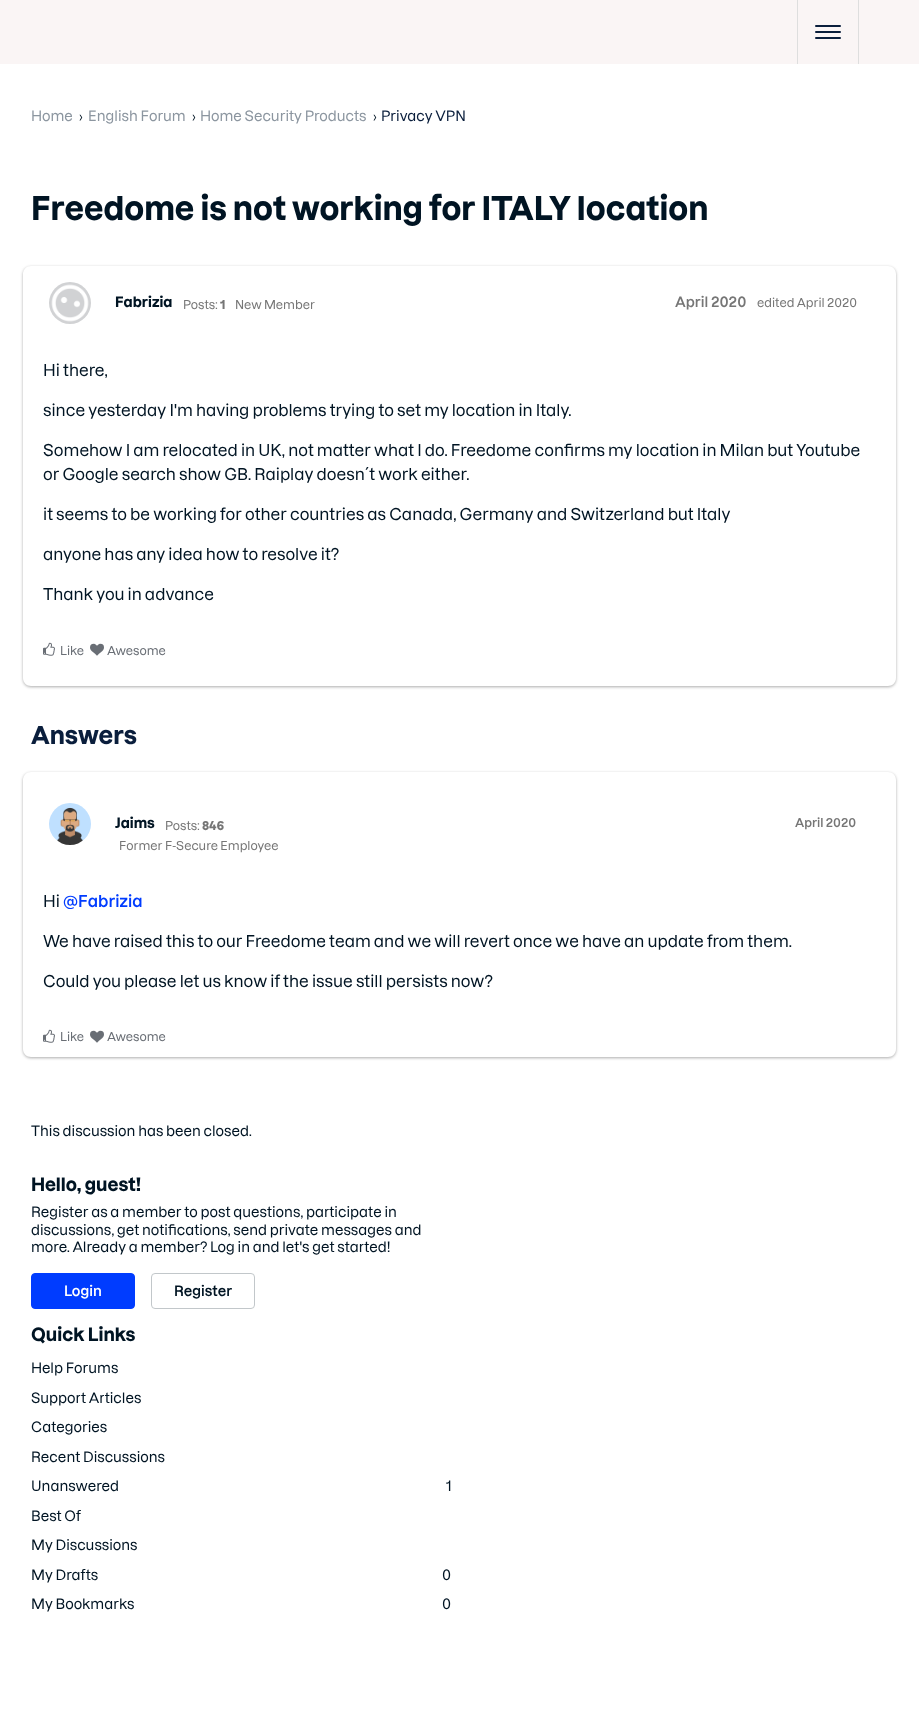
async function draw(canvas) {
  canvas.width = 919
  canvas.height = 1715
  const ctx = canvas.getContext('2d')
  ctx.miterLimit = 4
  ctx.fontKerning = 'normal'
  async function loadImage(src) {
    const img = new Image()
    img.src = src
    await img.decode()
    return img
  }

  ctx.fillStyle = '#fff'
  ctx.fillRect(0, 0, 919, 1715)
  ctx.fillStyle = '#faf5f5'
  ctx.fillRect(0, 0, 919, 64)
  ctx.fillStyle = '#dedede'
  ctx.fillRect(858, 0, 1, 64)
  ctx.fillRect(797, 0, 1, 64)
  ctx.fillStyle = '#0a1e3c'
  ctx.beginPath()
  ctx.roundRect(815, 31, 26, 2, 1)
  ctx.fill()
  ctx.beginPath()
  ctx.roundRect(815, 25, 26, 2, 1)
  ctx.fill()
  ctx.beginPath()
  ctx.roundRect(815, 37, 26, 2, 1)
  ctx.fill()
  ctx.font = '500 14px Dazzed'
  ctx.fillStyle = '#8c96a0'
  ctx.fillText('Home', 31, 121)
  ctx.font = '500 12px Dazzed'
  ctx.fillStyle = '#001423'
  ctx.fillText('›', 79, 121)
  ctx.font = '500 14px Dazzed'
  ctx.fillStyle = '#8c96a0'
  ctx.fillText('English Forum', 88, 121)
  ctx.font = '500 12px Dazzed'
  ctx.fillStyle = '#001423'
  ctx.fillText('›', 192, 121)
  ctx.font = '500 14px Dazzed'
  ctx.fillStyle = '#8c96a0'
  ctx.fillText('Home Security Products', 200, 121)
  ctx.font = '500 12px Dazzed'
  ctx.fillStyle = '#001423'
  ctx.fillText('›', 373, 121)
  ctx.font = '500 14px Dazzed'
  ctx.fillStyle = '#0a1e3c'
  ctx.fillText('Privacy VPN', 381, 121)
  ctx.font = 'bold 32px Dazzed'
  ctx.fillStyle = '#001423'
  ctx.fillText('Freedome is not working for ITALY location', 31, 220)
  ctx.save()
  ctx.beginPath()
  ctx.moveTo(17, 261)
  ctx.lineTo(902, 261)
  ctx.lineTo(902, 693)
  ctx.lineTo(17, 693)
  ctx.closePath()
  ctx.moveTo(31, 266)
  ctx.lineTo(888, 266)
  ctx.bezierCurveTo(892.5, 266, 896, 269.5, 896, 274)
  ctx.lineTo(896, 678)
  ctx.bezierCurveTo(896, 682.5, 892.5, 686, 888, 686)
  ctx.lineTo(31, 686)
  ctx.bezierCurveTo(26.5, 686, 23, 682.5, 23, 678)
  ctx.lineTo(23, 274)
  ctx.bezierCurveTo(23, 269.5, 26.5, 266, 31, 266)
  ctx.closePath()
  ctx.clip('evenodd')
  ctx.fillStyle = '#acacac'
  ctx.filter = 'blur(1.5px)'
  ctx.beginPath()
  ctx.roundRect(23, 267, 873, 420, 8)
  ctx.fill()
  ctx.filter = 'none'
  ctx.restore()
  ctx.drawImage(await loadImage('image0.png'), 49, 282, 42, 42)
  ctx.font = 'bold 14px Dazzed'
  ctx.fillText('Fabrizia', 115, 307)
  ctx.font = '500 12px Dazzed'
  ctx.fillStyle = '#767676'
  ctx.fillText('Posts:', 183, 309)
  ctx.font = 'bold 12px Dazzed'
  ctx.fillText('1', 220, 309)
  ctx.font = '500 12px Dazzed'
  ctx.fillText('New Member', 235, 309)
  ctx.font = '600 14px Dazzed'
  ctx.fillText('April 2020', 675, 307)
  ctx.font = '500 12px Dazzed'
  ctx.fillText('edited April 2020', 757, 307)
  ctx.font = '500 16px Dazzed'
  ctx.fillStyle = '#001423'
  ctx.fillText('Hi there,', 43, 376)
  ctx.fillText('since yesterday I\'m having problems trying to set my location in Italy.', 43, 416)
  ctx.fillText('Somehow I am relocated in UK, not matter what I do. Freedome confirms my location in Milan but Youtube', 43, 456)
  ctx.fillText('or Google search show GB. Raiplay doesn´t work either.', 43, 480)
  ctx.fillText('it seems to be working for other countries as Canada, Germany and Switzerland but Italy', 43, 520)
  ctx.fillText('anyone has any idea how to resolve it?', 43, 560)
  ctx.fillText('Thank you in advance', 43, 600)
  ctx.drawImage(await loadImage('image1.png'), 43, 642, 12, 14)
  ctx.font = '500 12px Dazzed'
  ctx.fillStyle = '#696e75'
  ctx.fillText('Like', 60, 655)
  ctx.drawImage(await loadImage('image2.png'), 90, 643, 14, 13)
  ctx.fillText('Awesome', 107, 655)
  ctx.font = 'bold 24px Dazzed'
  ctx.fillStyle = '#0a1e3c'
  ctx.fillText('Answers', 31, 744)
  ctx.save()
  ctx.beginPath()
  ctx.moveTo(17, 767)
  ctx.lineTo(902, 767)
  ctx.lineTo(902, 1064)
  ctx.lineTo(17, 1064)
  ctx.closePath()
  ctx.moveTo(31, 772)
  ctx.lineTo(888, 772)
  ctx.bezierCurveTo(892.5, 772, 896, 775.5, 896, 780)
  ctx.lineTo(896, 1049)
  ctx.bezierCurveTo(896, 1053.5, 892.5, 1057, 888, 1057)
  ctx.lineTo(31, 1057)
  ctx.bezierCurveTo(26.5, 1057, 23, 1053.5, 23, 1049)
  ctx.lineTo(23, 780)
  ctx.bezierCurveTo(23, 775.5, 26.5, 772, 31, 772)
  ctx.closePath()
  ctx.clip('evenodd')
  ctx.fillStyle = '#acacac'
  ctx.filter = 'blur(1.5px)'
  ctx.beginPath()
  ctx.roundRect(23, 773, 873, 285, 8)
  ctx.fill()
  ctx.filter = 'none'
  ctx.restore()
  ctx.drawImage(await loadImage('image3.png'), 49, 803, 42, 42)
  ctx.font = 'bold 14px Dazzed'
  ctx.fillStyle = '#001423'
  ctx.fillText('Jaims', 115, 828)
  ctx.font = '500 12px Dazzed'
  ctx.fillStyle = '#767676'
  ctx.fillText('Posts:', 165, 830)
  ctx.font = 'bold 12px Dazzed'
  ctx.fillText('846', 202, 830)
  ctx.font = '500 12px Dazzed'
  ctx.fillText('Former F-Secure Employee', 119, 850)
  ctx.font = '600 12px Dazzed'
  ctx.fillText('April 2020', 795, 827)
  ctx.font = '500 16px Dazzed'
  ctx.fillStyle = '#001423'
  ctx.fillText('Hi', 43, 907)
  ctx.font = '600 16px Dazzed'
  ctx.fillStyle = '#003cff'
  ctx.fillText('@Fabrizia', 63, 907)
  ctx.font = '500 16px Dazzed'
  ctx.fillStyle = '#001423'
  ctx.fillText('We have raised this to our Freedome team and we will revert once we have an update from them.', 43, 947)
  ctx.fillText('Could you please let us know if the issue still persists now?', 43, 987)
  ctx.drawImage(await loadImage('image1.png'), 43, 1029, 12, 14)
  ctx.font = '500 12px Dazzed'
  ctx.fillStyle = '#696e75'
  ctx.fillText('Like', 60, 1041)
  ctx.drawImage(await loadImage('image2.png'), 90, 1030, 14, 13)
  ctx.fillText('Awesome', 107, 1041)
  ctx.font = '500 14px Dazzed'
  ctx.fillStyle = '#001423'
  ctx.fillText('This discussion has been closed.', 31, 1136)
  ctx.font = 'bold 18px Dazzed'
  ctx.fillText('Hello, guest!', 31, 1191)
  ctx.font = '500 14px Dazzed'
  ctx.fillText('Register as a member to post questions, participate in', 31, 1217)
  ctx.fillText('discussions, get notifications, send private messages and', 31, 1235)
  ctx.fillText('more. Already a member? Log in and let\'s get started!', 31, 1252)
  ctx.fillStyle = '#003cff'
  ctx.beginPath()
  ctx.roundRect(31.5, 1273.5, 103, 35, 3.5)
  ctx.fill()
  ctx.strokeStyle = '#003cff'
  ctx.stroke()
  ctx.font = '600 14px Dazzed'
  ctx.fillStyle = '#fff'
  ctx.fillText('Login', 64, 1296)
  ctx.beginPath()
  ctx.roundRect(151.5, 1273.5, 103, 35, 3.5)
  ctx.strokeStyle = '#c2c7ca'
  ctx.stroke()
  ctx.fillStyle = '#001423'
  ctx.fillText('Register', 174, 1296)
  ctx.font = 'bold 18px Dazzed'
  ctx.fillText('Quick Links', 31, 1341)
  ctx.font = '500 14px Dazzed'
  ctx.fillText('Help Forums', 31, 1373)
  ctx.fillText('Support Articles', 31, 1403)
  ctx.fillText('Categories', 31, 1432)
  ctx.fillText('Recent Discussions', 31, 1462)
  ctx.fillText('Unanswered', 31, 1491)
  ctx.fillText('1', 446, 1491)
  ctx.fillText('Best Of', 31, 1521)
  ctx.fillText('My Discussions', 31, 1550)
  ctx.fillText('My Drafts', 31, 1580)
  ctx.fillText('0', 442, 1580)
  ctx.fillText('My Bookmarks', 31, 1609)
  ctx.fillText('0', 442, 1609)
}

draw(document.querySelector('canvas'))
